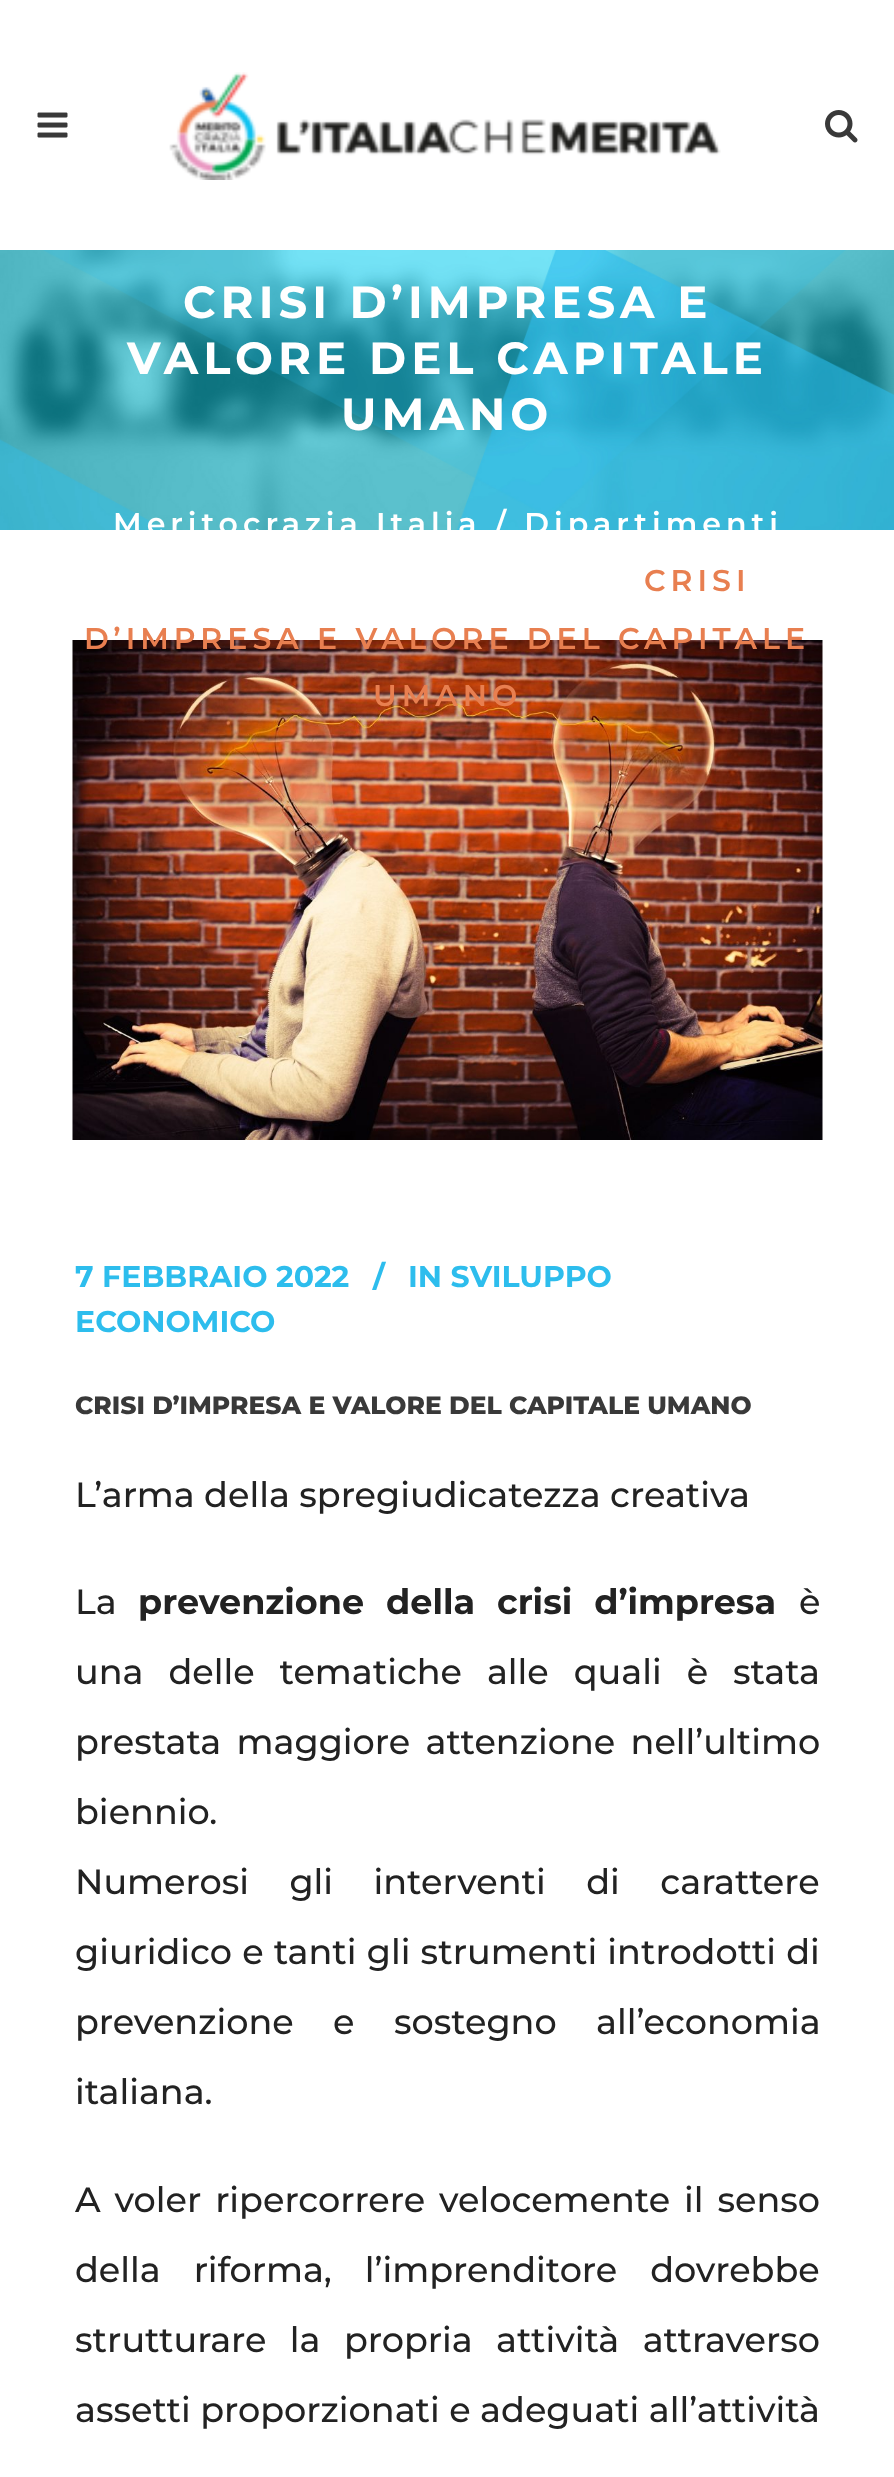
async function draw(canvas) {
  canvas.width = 894
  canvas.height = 2477
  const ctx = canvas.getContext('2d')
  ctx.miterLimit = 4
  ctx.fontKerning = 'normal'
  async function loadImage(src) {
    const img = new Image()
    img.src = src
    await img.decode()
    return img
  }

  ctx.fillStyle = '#fff'
  ctx.fillRect(0, 0, 894, 2477)
  ctx.drawImage(await loadImage('image0.png'), 37, 112, 31, 26)
  ctx.drawImage(await loadImage('image1.png'), 169, 72, 552, 108)
  ctx.drawImage(await loadImage('image2.png'), 825, 110, 33, 33)
  ctx.drawImage(await loadImage('image3.png'), 0, 250, 894, 280)
  ctx.letterSpacing = '5px'
  ctx.font = 'bold 45px Montserrat'
  ctx.fillText('CRISI D’IMPRESA E', 183, 318)
  ctx.fillText('VALORE DEL CAPITALE', 127, 374)
  ctx.fillText('UMANO', 341, 430)
  ctx.font = '600 30px Montserrat'
  ctx.fillText('Meritocrazia Italia / Dipartimenti', 113, 534)
  ctx.fillStyle = '#e87f50'
  ctx.fillText('CRISI', 644, 591)
  ctx.drawImage(await loadImage('image4.png'), 72, 640, 751, 500)
  ctx.fillText('D’IMPRESA E VALORE DEL CAPITALE', 84, 649)
  ctx.fillText('UMANO', 373, 706)
  ctx.letterSpacing = '0px'
  ctx.font = 'bold 30px Montserrat'
  ctx.fillStyle = '#2dbded'
  ctx.fillText('7 FEBBRAIO 2022', 75, 1287)
  ctx.fillText('/', 373, 1287)
  ctx.fillText('IN SVILUPPO', 408, 1287)
  ctx.fillText('ECONOMICO', 75, 1332)
  ctx.font = '800 25px Montserrat'
  ctx.fillStyle = '#393939'
  ctx.fillText('CRISI D’IMPRESA E VALORE DEL CAPITALE UMANO', 75, 1414)
  ctx.font = '500 35px Montserrat'
  ctx.fillStyle = '#222'
  ctx.fillText('L’arma della spregiudicatezza creativa', 75, 1507)
  ctx.fillText('La', 75, 1614)
  ctx.wordSpacing = '12px'
  ctx.font = 'bold 35px Montserrat'
  ctx.fillText('prevenzione della crisi d’impresa', 138, 1614)
  ctx.wordSpacing = '0px'
  ctx.font = '500 35px Montserrat'
  ctx.fillText('è', 799, 1614)
  ctx.wordSpacing = '15.5px'
  ctx.fillText('una delle tematiche alle quali è stata', 75, 1684)
  ctx.wordSpacing = '6px'
  ctx.fillText('prestata maggiore attenzione nell’ultimo', 75, 1754)
  ctx.wordSpacing = '0px'
  ctx.fillText('biennio.', 75, 1824)
  ctx.wordSpacing = '31px'
  ctx.fillText('Numerosi gli interventi di carattere', 75, 1894)
  ctx.wordSpacing = '0.75px'
  ctx.fillText('giuridico e tanti gli strumenti introdotti di', 75, 1964)
  ctx.wordSpacing = '30px'
  ctx.fillText('prevenzione e sostegno all’economia', 75, 2034)
  ctx.wordSpacing = '0px'
  ctx.fillText('italiana.', 75, 2104)
  ctx.wordSpacing = '4.5px'
  ctx.fillText('A voler ripercorrere velocemente il senso', 75, 2212)
  ctx.wordSpacing = '23.5px'
  ctx.fillText('della riforma, l’imprenditore dovrebbe', 75, 2282)
  ctx.wordSpacing = '14px'
  ctx.fillText('strutturare la propria attività attraverso', 75, 2352)
  ctx.wordSpacing = '0px'
  ctx.fillText('assetti proporzionati e adeguati all’attività', 75, 2422)
}

draw(document.querySelector('canvas'))
